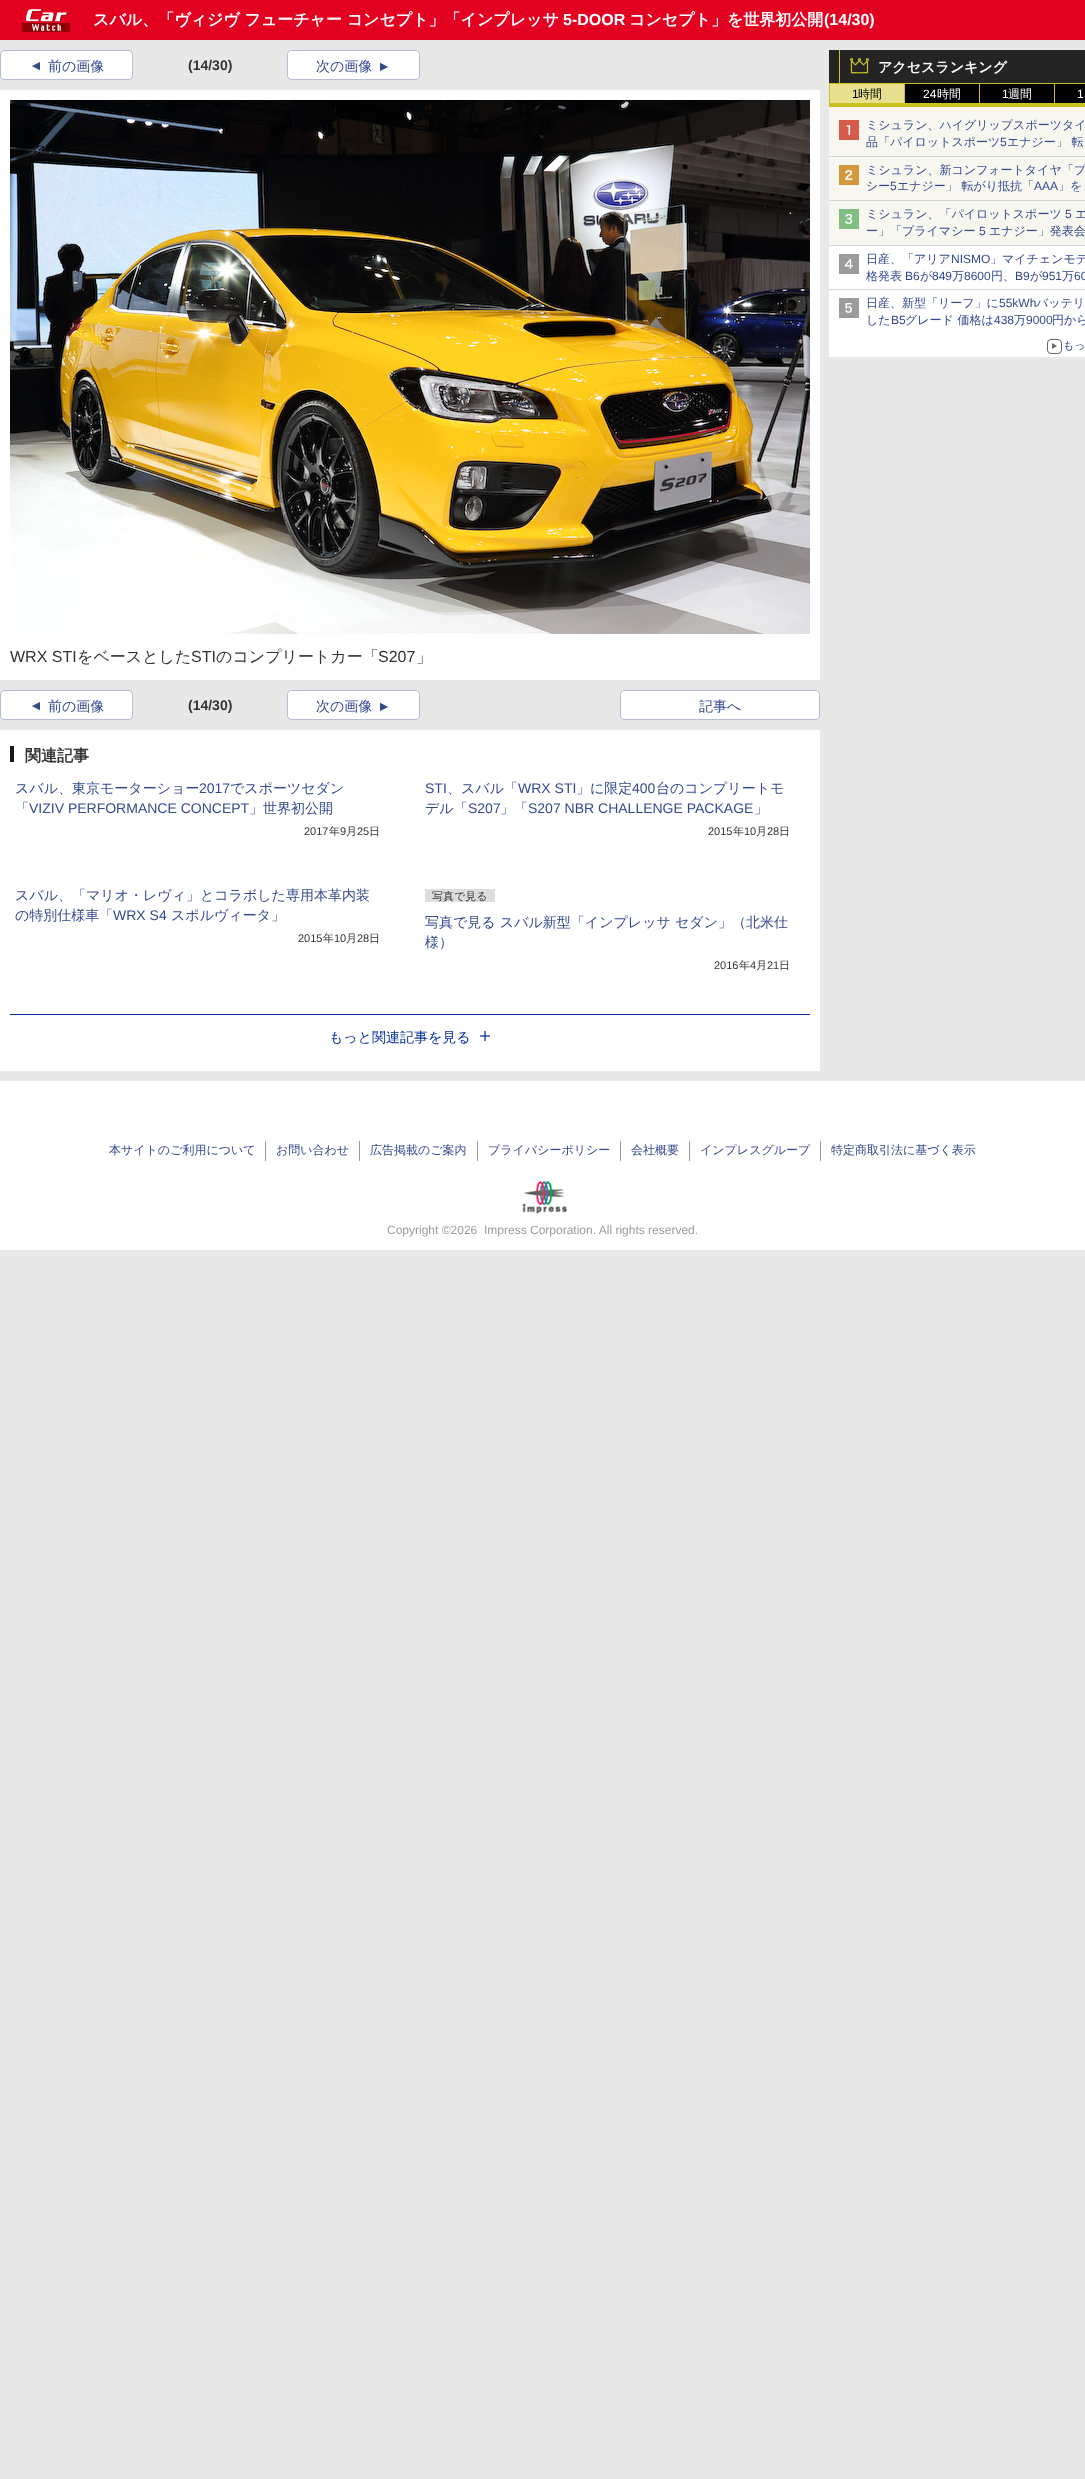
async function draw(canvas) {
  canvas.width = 1085
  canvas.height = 2479
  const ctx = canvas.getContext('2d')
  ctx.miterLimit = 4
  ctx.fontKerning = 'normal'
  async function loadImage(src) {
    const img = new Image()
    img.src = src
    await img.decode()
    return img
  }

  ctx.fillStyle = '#e8e8e8'
  ctx.fillRect(0, 0, 1085, 2479)
  ctx.fillStyle = '#e30121'
  ctx.fillRect(0, 0, 1085, 40)
  ctx.drawImage(await loadImage('image0.png'), 22, 9, 48, 23)
  ctx.font = 'bold 16px WenQuanYi Zen Hei'
  ctx.fillStyle = '#fff'
  ctx.fillText('スバル、「ヴィジヴ フューチャー コンセプト」「インプレッサ', 93, 25)
  ctx.font = 'bold 16px Liberation Sans'
  ctx.fillText('5-DOOR', 563, 25)
  ctx.font = 'bold 16px WenQuanYi Zen Hei'
  ctx.fillText('コンセプト」を世界初公開', 629, 25)
  ctx.font = 'bold 16px Liberation Sans'
  ctx.fillText('(14/30)', 824, 25)
  ctx.beginPath()
  ctx.roundRect(0, 50, 133, 30, 4)
  ctx.fill()
  ctx.beginPath()
  ctx.roundRect(0.5, 50.5, 132, 29, 3.5)
  ctx.strokeStyle = '#32498e5c'
  ctx.stroke()
  ctx.font = '14px Liberation Sans'
  ctx.fillStyle = '#33498e'
  ctx.save()
  ctx.translate(40, 73)
  ctx.rotate(-90 * Math.PI / 180)
  ctx.fillText('▲', 0, 0)
  ctx.restore()
  ctx.font = '500 14px WenQuanYi Zen Hei'
  ctx.fillText('前の画像', 48, 71)
  ctx.font = 'bold 14px Liberation Sans'
  ctx.fillStyle = '#333'
  ctx.fillText('(14/30)', 188, 70)
  ctx.fillStyle = '#fff'
  ctx.beginPath()
  ctx.roundRect(287, 50, 133, 30, 4)
  ctx.fill()
  ctx.beginPath()
  ctx.roundRect(287.5, 50.5, 132, 29, 3.5)
  ctx.stroke()
  ctx.font = '500 14px WenQuanYi Zen Hei'
  ctx.fillStyle = '#33498e'
  ctx.fillText('次の画像', 316, 71)
  ctx.font = '14px Liberation Sans'
  ctx.save()
  ctx.translate(380, 60)
  ctx.rotate(90 * Math.PI / 180)
  ctx.fillText('▲', 0, 0)
  ctx.restore()
  ctx.fillStyle = '#fff'
  ctx.fillRect(0, 90, 820, 590)
  ctx.drawImage(await loadImage('image1.png'), 10, 100, 800, 534)
  ctx.font = '16px Liberation Sans'
  ctx.fillStyle = '#333'
  ctx.fillText('WRX STI', 10, 662)
  ctx.font = '500 16px WenQuanYi Zen Hei'
  ctx.fillText('をベースとした', 77, 662)
  ctx.font = '16px Liberation Sans'
  ctx.fillText('STI', 191, 662)
  ctx.font = '500 16px WenQuanYi Zen Hei'
  ctx.fillText('のコンプリートカー「', 216, 662)
  ctx.font = '16px Liberation Sans'
  ctx.fillText('S207', 378, 662)
  ctx.font = '500 16px WenQuanYi Zen Hei'
  ctx.fillText('」', 416, 662)
  ctx.fillStyle = '#fff'
  ctx.beginPath()
  ctx.roundRect(0, 690, 133, 30, 4)
  ctx.fill()
  ctx.beginPath()
  ctx.roundRect(0.5, 690.5, 132, 29, 3.5)
  ctx.stroke()
  ctx.font = '14px Liberation Sans'
  ctx.fillStyle = '#33498e'
  ctx.save()
  ctx.translate(40, 713)
  ctx.rotate(-90 * Math.PI / 180)
  ctx.fillText('▲', 0, 0)
  ctx.restore()
  ctx.font = '500 14px WenQuanYi Zen Hei'
  ctx.fillText('前の画像', 48, 711)
  ctx.font = 'bold 14px Liberation Sans'
  ctx.fillStyle = '#333'
  ctx.fillText('(14/30)', 188, 710)
  ctx.fillStyle = '#fff'
  ctx.beginPath()
  ctx.roundRect(287, 690, 133, 30, 4)
  ctx.fill()
  ctx.beginPath()
  ctx.roundRect(287.5, 690.5, 132, 29, 3.5)
  ctx.stroke()
  ctx.font = '500 14px WenQuanYi Zen Hei'
  ctx.fillStyle = '#33498e'
  ctx.fillText('次の画像', 316, 711)
  ctx.font = '14px Liberation Sans'
  ctx.save()
  ctx.translate(380, 700)
  ctx.rotate(90 * Math.PI / 180)
  ctx.fillText('▲', 0, 0)
  ctx.restore()
  ctx.fillStyle = '#fff'
  ctx.beginPath()
  ctx.roundRect(620, 690, 200, 30, 4)
  ctx.fill()
  ctx.beginPath()
  ctx.roundRect(620.5, 690.5, 199, 29, 3.5)
  ctx.stroke()
  ctx.font = '500 14px WenQuanYi Zen Hei'
  ctx.fillStyle = '#33498e'
  ctx.fillText('記事へ', 699, 711)
  ctx.fillStyle = '#fff'
  ctx.fillRect(0, 730, 820, 341)
  ctx.fillStyle = '#181818'
  ctx.fillRect(10, 746, 4, 16)
  ctx.font = 'bold 16px WenQuanYi Zen Hei'
  ctx.fillStyle = '#333'
  ctx.fillText('関連記事', 25, 761)
  ctx.font = '500 14px WenQuanYi Zen Hei'
  ctx.fillStyle = '#33498e'
  ctx.fillText('スバル、東京モーターショー', 15, 793)
  ctx.font = '14px Liberation Sans'
  ctx.fillText('2017', 199, 793)
  ctx.font = '500 14px WenQuanYi Zen Hei'
  ctx.fillText('でスポーツセダン', 230, 793)
  ctx.fillText('「', 15, 813)
  ctx.font = '14px Liberation Sans'
  ctx.fillText('VIZIV PERFORMANCE CONCEPT', 29, 813)
  ctx.font = '500 14px WenQuanYi Zen Hei'
  ctx.fillText('」世界初公開', 249, 813)
  ctx.font = '11px Liberation Sans'
  ctx.fillStyle = '#333'
  ctx.fillText('2017', 304, 835)
  ctx.font = '500 11px WenQuanYi Zen Hei'
  ctx.fillText('年', 329, 835)
  ctx.font = '11px Liberation Sans'
  ctx.fillText('9', 340, 835)
  ctx.font = '500 11px WenQuanYi Zen Hei'
  ctx.fillText('月', 346, 835)
  ctx.font = '11px Liberation Sans'
  ctx.fillText('25', 357, 835)
  ctx.font = '500 11px WenQuanYi Zen Hei'
  ctx.fillText('日', 369, 835)
  ctx.font = '14px Liberation Sans'
  ctx.fillStyle = '#33498e'
  ctx.fillText('STI', 425, 793)
  ctx.font = '500 14px WenQuanYi Zen Hei'
  ctx.fillText('、スバル「', 447, 793)
  ctx.font = '14px Liberation Sans'
  ctx.fillText('WRX STI', 518, 793)
  ctx.font = '500 14px WenQuanYi Zen Hei'
  ctx.fillText('」に限定', 576, 793)
  ctx.font = '14px Liberation Sans'
  ctx.fillText('400', 632, 793)
  ctx.font = '500 14px WenQuanYi Zen Hei'
  ctx.fillText('台のコンプリートモ', 656, 793)
  ctx.fillText('デル「', 425, 813)
  ctx.font = '14px Liberation Sans'
  ctx.fillText('S207', 468, 813)
  ctx.font = '500 14px WenQuanYi Zen Hei'
  ctx.fillText('」「', 500, 813)
  ctx.font = '14px Liberation Sans'
  ctx.fillText('S207 NBR CHALLENGE PACKAGE', 528, 813)
  ctx.font = '500 14px WenQuanYi Zen Hei'
  ctx.fillText('」', 754, 813)
  ctx.font = '11px Liberation Sans'
  ctx.fillStyle = '#333'
  ctx.fillText('2015', 708, 835)
  ctx.font = '500 11px WenQuanYi Zen Hei'
  ctx.fillText('年', 733, 835)
  ctx.font = '11px Liberation Sans'
  ctx.fillText('10', 744, 835)
  ctx.font = '500 11px WenQuanYi Zen Hei'
  ctx.fillText('月', 756, 835)
  ctx.font = '11px Liberation Sans'
  ctx.fillText('28', 767, 835)
  ctx.font = '500 11px WenQuanYi Zen Hei'
  ctx.fillText('日', 779, 835)
  ctx.font = '500 14px WenQuanYi Zen Hei'
  ctx.fillStyle = '#33498e'
  ctx.fillText('スバル、「マリオ・レヴィ」とコラボした専用本革内装', 15, 900)
  ctx.fillText('の特別仕様車「', 15, 920)
  ctx.font = '14px Liberation Sans'
  ctx.fillText('WRX S4', 113, 920)
  ctx.font = '500 14px WenQuanYi Zen Hei'
  ctx.fillText('スポルヴィータ」', 171, 920)
  ctx.font = '11px Liberation Sans'
  ctx.fillStyle = '#333'
  ctx.fillText('2015', 298, 942)
  ctx.font = '500 11px WenQuanYi Zen Hei'
  ctx.fillText('年', 323, 942)
  ctx.font = '11px Liberation Sans'
  ctx.fillText('10', 334, 942)
  ctx.font = '500 11px WenQuanYi Zen Hei'
  ctx.fillText('月', 346, 942)
  ctx.font = '11px Liberation Sans'
  ctx.fillText('28', 357, 942)
  ctx.font = '500 11px WenQuanYi Zen Hei'
  ctx.fillText('日', 369, 942)
  ctx.fillStyle = '#ddd'
  ctx.fillRect(425, 889, 70, 13)
  ctx.fillStyle = '#333'
  ctx.fillText('写真で見る', 432, 900)
  ctx.font = '500 14px WenQuanYi Zen Hei'
  ctx.fillStyle = '#33498e'
  ctx.fillText('写真で見る スバル新型「インプレッサ セダン」（北米仕', 425, 927)
  ctx.fillText('様）', 425, 947)
  ctx.font = '11px Liberation Sans'
  ctx.fillStyle = '#333'
  ctx.fillText('2016', 714, 969)
  ctx.font = '500 11px WenQuanYi Zen Hei'
  ctx.fillText('年', 739, 969)
  ctx.font = '11px Liberation Sans'
  ctx.fillText('4', 750, 969)
  ctx.font = '500 11px WenQuanYi Zen Hei'
  ctx.fillText('月', 756, 969)
  ctx.font = '11px Liberation Sans'
  ctx.fillText('21', 767, 969)
  ctx.font = '500 11px WenQuanYi Zen Hei'
  ctx.fillText('日', 779, 969)
  ctx.fillStyle = '#032e9d'
  ctx.fillRect(10, 1014, 800, 1)
  ctx.font = '500 14px WenQuanYi Zen Hei'
  ctx.fillText('もっと関連記事を見る', 329, 1042)
  ctx.drawImage(await loadImage('image2.png'), 480, 1031, 10, 10)
  ctx.fillStyle = '#242424'
  ctx.fillRect(829, 50, 256, 33)
  ctx.fillStyle = '#cbc121'
  ctx.fillRect(829, 83, 256, 1)
  ctx.fillRect(839, 50, 1, 34)
  ctx.drawImage(await loadImage('image3.png'), 850, 58, 19, 16)
  ctx.font = 'bold 14px WenQuanYi Zen Hei'
  ctx.fillStyle = '#fff'
  ctx.fillText('アクセスランキング', 878, 72)
  ctx.fillStyle = '#e7e18f'
  ctx.fillRect(830, 84, 74, 19)
  ctx.fillStyle = '#cbc121'
  ctx.fillRect(829, 103, 256, 4)
  ctx.fillRect(829, 84, 1, 23)
  ctx.font = '12px Liberation Sans'
  ctx.fillStyle = '#000'
  ctx.fillText('1', 852, 98)
  ctx.font = '500 12px WenQuanYi Zen Hei'
  ctx.fillText('時間', 858, 98)
  ctx.fillRect(905, 84, 74, 19)
  ctx.fillStyle = '#cbc121'
  ctx.fillRect(904, 84, 1, 23)
  ctx.font = '12px Liberation Sans'
  ctx.fillStyle = '#fff'
  ctx.fillText('24', 923, 98)
  ctx.font = '500 12px WenQuanYi Zen Hei'
  ctx.fillText('時間', 937, 98)
  ctx.fillStyle = '#000'
  ctx.fillRect(980, 84, 74, 19)
  ctx.fillStyle = '#cbc121'
  ctx.fillRect(979, 84, 1, 23)
  ctx.font = '12px Liberation Sans'
  ctx.fillStyle = '#fff'
  ctx.fillText('1', 1002, 98)
  ctx.font = '500 12px WenQuanYi Zen Hei'
  ctx.fillText('週間', 1008, 98)
  ctx.fillStyle = '#000'
  ctx.fillRect(1055, 84, 30, 19)
  ctx.fillStyle = '#cbc121'
  ctx.fillRect(1054, 84, 1, 23)
  ctx.font = '12px Liberation Sans'
  ctx.fillStyle = '#fff'
  ctx.fillText('1', 1077, 98)
  ctx.fillStyle = '#f7f7ef'
  ctx.fillRect(829, 107, 256, 49)
  ctx.fillStyle = '#d8d8d8'
  ctx.fillRect(829, 156, 256, 1)
  ctx.drawImage(await loadImage('image4.png'), 839, 120, 20, 20)
  ctx.font = '500 12px WenQuanYi Zen Hei'
  ctx.fillStyle = '#33498e'
  ctx.fillText('ミシュラン、ハイグリップスポーツタイ', 866, 129)
  ctx.fillText('品「パイロットスポーツ', 866, 146)
  ctx.font = '12px Liberation Sans'
  ctx.fillText('5', 1000, 146)
  ctx.font = '500 12px WenQuanYi Zen Hei'
  ctx.fillText('エナジー」 転', 1007, 146)
  ctx.fillStyle = '#f7f7ef'
  ctx.fillRect(829, 157, 256, 43)
  ctx.fillStyle = '#d8d8d8'
  ctx.fillRect(829, 200, 256, 1)
  ctx.drawImage(await loadImage('image5.png'), 839, 165, 20, 20)
  ctx.fillStyle = '#33498e'
  ctx.fillText('ミシュラン、新コンフォートタイヤ「プ', 866, 174)
  ctx.fillText('シー', 866, 190)
  ctx.font = '12px Liberation Sans'
  ctx.fillText('5', 890, 190)
  ctx.font = '500 12px WenQuanYi Zen Hei'
  ctx.fillText('エナジー」 転がり抵抗「', 897, 190)
  ctx.font = '12px Liberation Sans'
  ctx.fillText('AAA', 1034, 190)
  ctx.font = '500 12px WenQuanYi Zen Hei'
  ctx.fillText('」を', 1058, 190)
  ctx.fillStyle = '#f7f7ef'
  ctx.fillRect(829, 201, 256, 44)
  ctx.fillStyle = '#d8d8d8'
  ctx.fillRect(829, 245, 256, 1)
  ctx.drawImage(await loadImage('image6.png'), 839, 209, 20, 20)
  ctx.fillStyle = '#33498e'
  ctx.fillText('ミシュラン、「パイロットスポーツ', 866, 218)
  ctx.font = '12px Liberation Sans'
  ctx.fillText('5', 1065, 218)
  ctx.font = '500 12px WenQuanYi Zen Hei'
  ctx.fillText('エ', 1075, 218)
  ctx.fillText('ー」「プライマシー', 866, 235)
  ctx.font = '12px Liberation Sans'
  ctx.fillText('5', 979, 235)
  ctx.font = '500 12px WenQuanYi Zen Hei'
  ctx.fillText('エナジー」発表会', 989, 235)
  ctx.fillStyle = '#fff'
  ctx.fillRect(829, 246, 256, 111)
  ctx.fillStyle = '#d8d8d8'
  ctx.fillRect(829, 289, 256, 1)
  ctx.drawImage(await loadImage('image7.png'), 839, 254, 20, 20)
  ctx.fillStyle = '#33498e'
  ctx.fillText('日産、「アリア', 866, 263)
  ctx.font = '12px Liberation Sans'
  ctx.fillText('NISMO', 951, 263)
  ctx.font = '500 12px WenQuanYi Zen Hei'
  ctx.fillText('」マイチェンモデ', 990, 263)
  ctx.fillText('格発表', 866, 280)
  ctx.font = '12px Liberation Sans'
  ctx.fillText('B6', 905, 280)
  ctx.font = '500 12px WenQuanYi Zen Hei'
  ctx.fillText('が', 920, 280)
  ctx.font = '12px Liberation Sans'
  ctx.fillText('849', 932, 280)
  ctx.font = '500 12px WenQuanYi Zen Hei'
  ctx.fillText('万', 952, 280)
  ctx.font = '12px Liberation Sans'
  ctx.fillText('8600', 964, 280)
  ctx.font = '500 12px WenQuanYi Zen Hei'
  ctx.fillText('円、', 991, 280)
  ctx.font = '12px Liberation Sans'
  ctx.fillText('B9', 1015, 280)
  ctx.font = '500 12px WenQuanYi Zen Hei'
  ctx.fillText('が', 1030, 280)
  ctx.font = '12px Liberation Sans'
  ctx.fillText('951', 1042, 280)
  ctx.font = '500 12px WenQuanYi Zen Hei'
  ctx.fillText('万', 1062, 280)
  ctx.font = '12px Liberation Sans'
  ctx.fillText('60', 1074, 280)
  ctx.drawImage(await loadImage('image8.png'), 839, 298, 20, 20)
  ctx.font = '500 12px WenQuanYi Zen Hei'
  ctx.fillText('日産、新型「リーフ」に', 866, 307)
  ctx.font = '12px Liberation Sans'
  ctx.fillText('55kWh', 999, 307)
  ctx.font = '500 12px WenQuanYi Zen Hei'
  ctx.fillText('バッテリ', 1036, 307)
  ctx.fillText('した', 866, 324)
  ctx.font = '12px Liberation Sans'
  ctx.fillText('B5', 891, 324)
  ctx.font = '500 12px WenQuanYi Zen Hei'
  ctx.fillText('グレード 価格は', 905, 324)
  ctx.font = '12px Liberation Sans'
  ctx.fillText('438', 994, 324)
  ctx.font = '500 12px WenQuanYi Zen Hei'
  ctx.fillText('万', 1014, 324)
  ctx.font = '12px Liberation Sans'
  ctx.fillText('9000', 1026, 324)
  ctx.font = '500 12px WenQuanYi Zen Hei'
  ctx.fillText('円から', 1052, 324)
  ctx.beginPath()
  ctx.roundRect(1047.5, 339.5, 14, 14, 3.5)
  ctx.strokeStyle = '#666'
  ctx.stroke()
  ctx.font = '500 11px WenQuanYi Zen Hei'
  ctx.fillText('もっ', 1063, 349)
  ctx.fillStyle = '#666'
  ctx.beginPath()
  ctx.moveTo(1052, 349)
  ctx.lineTo(1052, 343)
  ctx.lineTo(1057, 346)
  ctx.closePath()
  ctx.fill()
  ctx.fillStyle = '#fff'
  ctx.fillRect(0, 1081, 1085, 169)
  ctx.fillStyle = '#9b9b9b'
  ctx.fillRect(265, 1141, 1, 20)
  ctx.font = '500 12px WenQuanYi Zen Hei'
  ctx.fillStyle = '#33498e'
  ctx.fillText('本サイトのご利用について', 109, 1154)
  ctx.fillStyle = '#9b9b9b'
  ctx.fillRect(359, 1141, 1, 20)
  ctx.fillStyle = '#33498e'
  ctx.fillText('お問い合わせ', 276, 1154)
  ctx.fillStyle = '#9b9b9b'
  ctx.fillRect(477, 1141, 1, 20)
  ctx.fillStyle = '#33498e'
  ctx.fillText('広告掲載のご案内', 370, 1154)
  ctx.fillStyle = '#9b9b9b'
  ctx.fillRect(620, 1141, 1, 20)
  ctx.fillStyle = '#33498e'
  ctx.fillText('プライバシーポリシー', 488, 1154)
  ctx.fillStyle = '#9b9b9b'
  ctx.fillRect(689, 1141, 1, 20)
  ctx.fillStyle = '#33498e'
  ctx.fillText('会社概要', 631, 1154)
  ctx.fillStyle = '#9b9b9b'
  ctx.fillRect(820, 1141, 1, 20)
  ctx.fillStyle = '#33498e'
  ctx.fillText('インプレスグループ', 700, 1154)
  ctx.fillText('特定商取引法に基づく表示', 831, 1154)
  ctx.drawImage(await loadImage('image9.png'), 522, 1181, 45, 33)
  ctx.font = '12px Liberation Sans'
  ctx.fillStyle = '#9b9b9b'
  ctx.fillText('Copyright ©2026', 387, 1234)
  ctx.fillText('Impress Corporation. All rights reserved.', 484, 1234)
}

draw(document.querySelector('canvas'))
